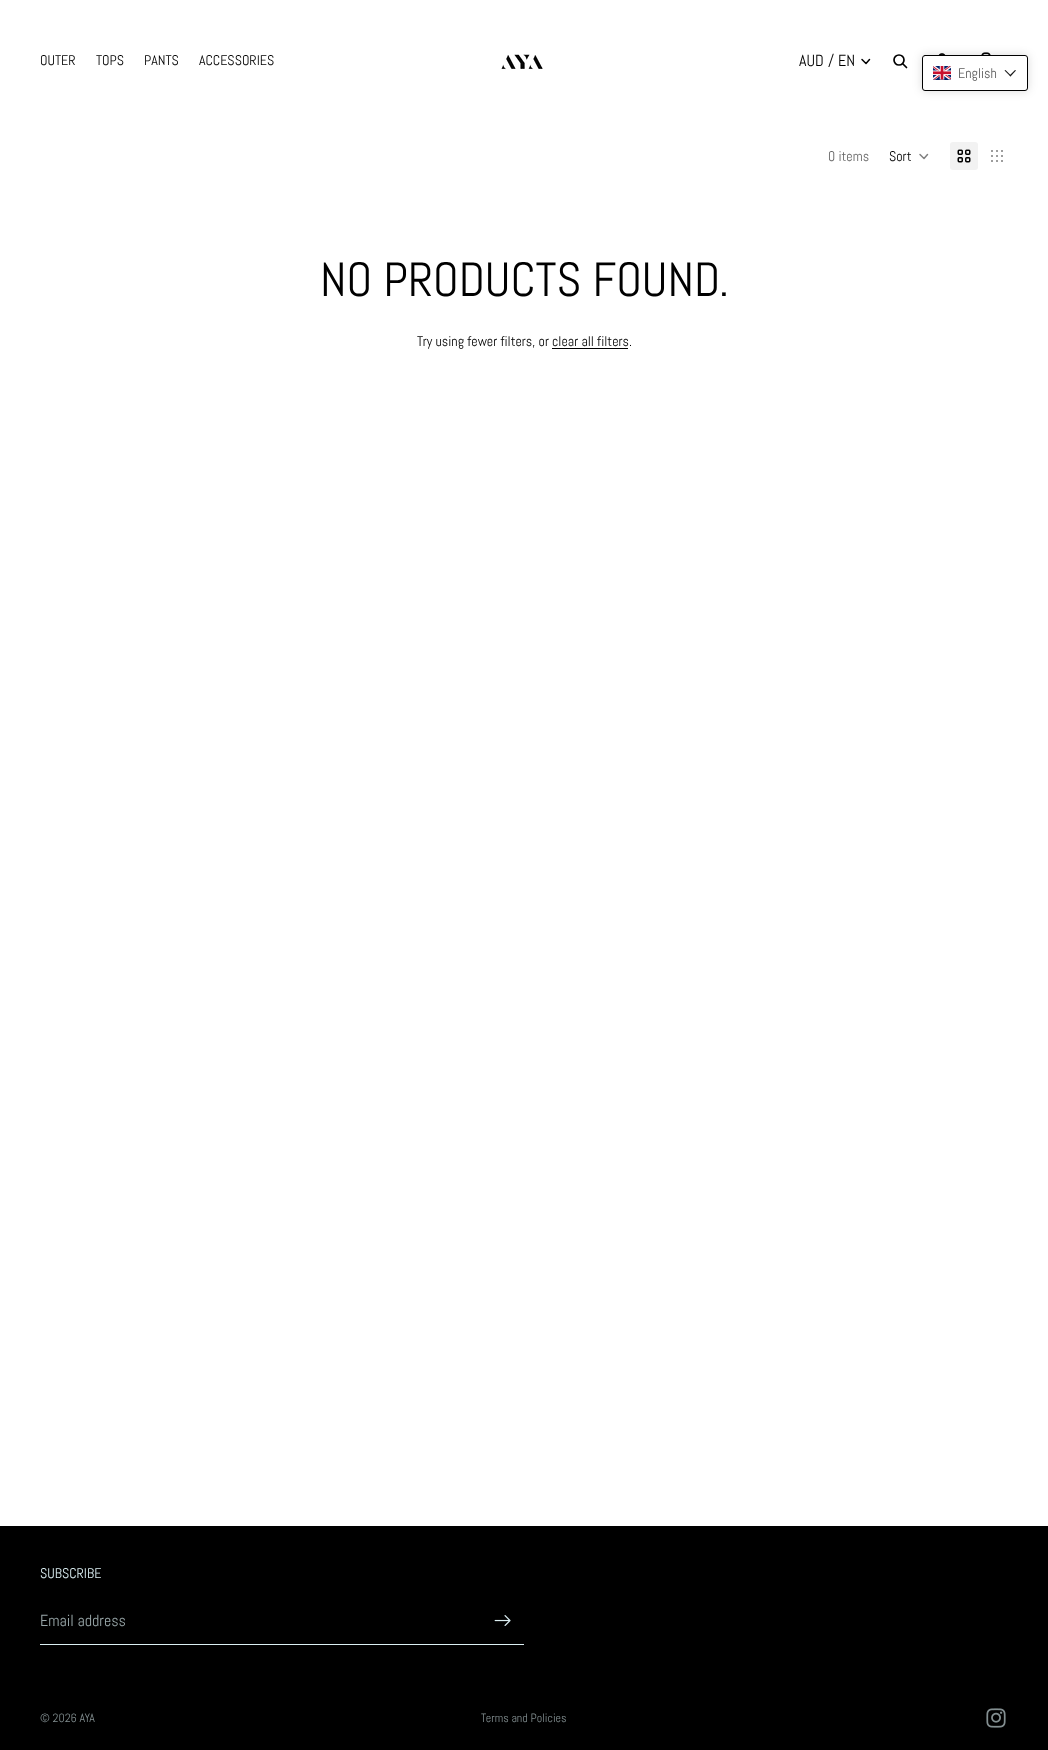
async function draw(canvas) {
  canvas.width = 1048
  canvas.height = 1750
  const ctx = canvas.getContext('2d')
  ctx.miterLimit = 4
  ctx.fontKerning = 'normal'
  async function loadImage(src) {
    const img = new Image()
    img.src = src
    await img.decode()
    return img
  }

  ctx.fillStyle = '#fff'
  ctx.fillRect(0, 0, 1048, 1750)
  ctx.font = '14px Abel'
  ctx.fillStyle = '#000'
  ctx.fillText('OUTER', 40, 65)
  ctx.fillText('TOPS', 96, 65)
  ctx.fillText('PANTS', 144, 65)
  ctx.fillText('ACCESSORIES', 199, 65)
  ctx.drawImage(await loadImage('image0.png'), 501, 54, 42, 16)
  ctx.font = '16px Abel'
  ctx.fillText('AUD', 799, 66)
  ctx.fillText('/', 828, 66)
  ctx.fillText('EN', 838, 66)
  ctx.beginPath()
  ctx.moveTo(869.5, 59.5)
  ctx.lineTo(866, 63.5)
  ctx.lineTo(862, 59.5)
  ctx.strokeStyle = '#000'
  ctx.lineWidth = 1.5
  ctx.lineCap = 'round'
  ctx.lineJoin = 'round'
  ctx.stroke()
  ctx.beginPath()
  ctx.arc(899, 60, 5, 0, 2 * Math.PI)
  ctx.lineWidth = 1.7
  ctx.stroke()
  ctx.beginPath()
  ctx.moveTo(903, 64)
  ctx.lineTo(906.5, 67.5)
  ctx.stroke()
  ctx.drawImage(await loadImage('image1.png'), 938, 53, 8, 2)
  ctx.drawImage(await loadImage('image2.png'), 981, 52, 10, 3)
  ctx.fillStyle = '#00000026'
  ctx.filter = 'blur(5px)'
  ctx.beginPath()
  ctx.roundRect(922, 55, 106, 36, 3)
  ctx.fill()
  ctx.filter = 'none'
  ctx.fillStyle = '#fff'
  ctx.beginPath()
  ctx.roundRect(922.5, 55.5, 105, 35, 2.5)
  ctx.fill()
  ctx.lineWidth = 1
  ctx.lineJoin = 'miter'
  ctx.stroke()
  ctx.drawImage(await loadImage('image3.png'), 933, 66, 18, 14)
  ctx.font = '14px Abel'
  ctx.fillStyle = '#5c5c5c'
  ctx.fillText('English', 958, 78)
  ctx.fillStyle = '#1a1a1a'
  ctx.beginPath()
  ctx.moveTo(1015, 70)
  ctx.lineTo(1016, 70.5)
  ctx.lineTo(1010.5, 76.5)
  ctx.lineTo(1009.5, 75.5)
  ctx.closePath()
  ctx.fill()
  ctx.beginPath()
  ctx.moveTo(1005.5, 70)
  ctx.lineTo(1011, 75.5)
  ctx.lineTo(1010.5, 76.5)
  ctx.lineTo(1004.5, 70.5)
  ctx.closePath()
  ctx.fill()
  ctx.fillStyle = '#666'
  ctx.fillText('0 items', 828, 161)
  ctx.fillStyle = '#000'
  ctx.fillText('Sort', 889, 161)
  ctx.beginPath()
  ctx.moveTo(927.5, 154.5)
  ctx.lineTo(924, 158.5)
  ctx.lineTo(920, 154.5)
  ctx.strokeStyle = '#808080'
  ctx.lineWidth = 1.5
  ctx.lineJoin = 'round'
  ctx.stroke()
  ctx.fillStyle = '#f2f2f2'
  ctx.beginPath()
  ctx.roundRect(950, 142, 28, 28, 3)
  ctx.fill()
  ctx.drawImage(await loadImage('image4.png'), 957, 149, 14, 14)
  ctx.drawImage(await loadImage('image5.png'), 991, 150, 12, 12)
  ctx.font = '48px Abel'
  ctx.fillStyle = '#000'
  ctx.fillText('NO PRODUCTS FOUND.', 320, 296)
  ctx.font = '14px Abel'
  ctx.fillText('Try using fewer filters, or clear all filters.', 417, 346)
  ctx.fillRect(552, 348, 76, 1)
  ctx.fillRect(0, 1526, 1048, 224)
  ctx.fillStyle = '#dbeef2'
  ctx.fillText('SUBSCRIBE', 40, 1578)
  ctx.fillRect(40, 1644, 484, 1)
  ctx.font = '16px Abel'
  ctx.fillStyle = '#99a7a9'
  ctx.fillText('Email address', 40, 1626)
  ctx.drawImage(await loadImage('image6.png'), 494, 1615, 17, 11)
  ctx.font = '12px Abel'
  ctx.fillStyle = '#838f91'
  ctx.fillText('© 2026 AYA', 40, 1722)
  ctx.fillText('Terms and Policies', 481, 1722)
  ctx.drawImage(await loadImage('image7.png'), 986, 1708, 20, 20)
}

draw(document.querySelector('canvas'))
